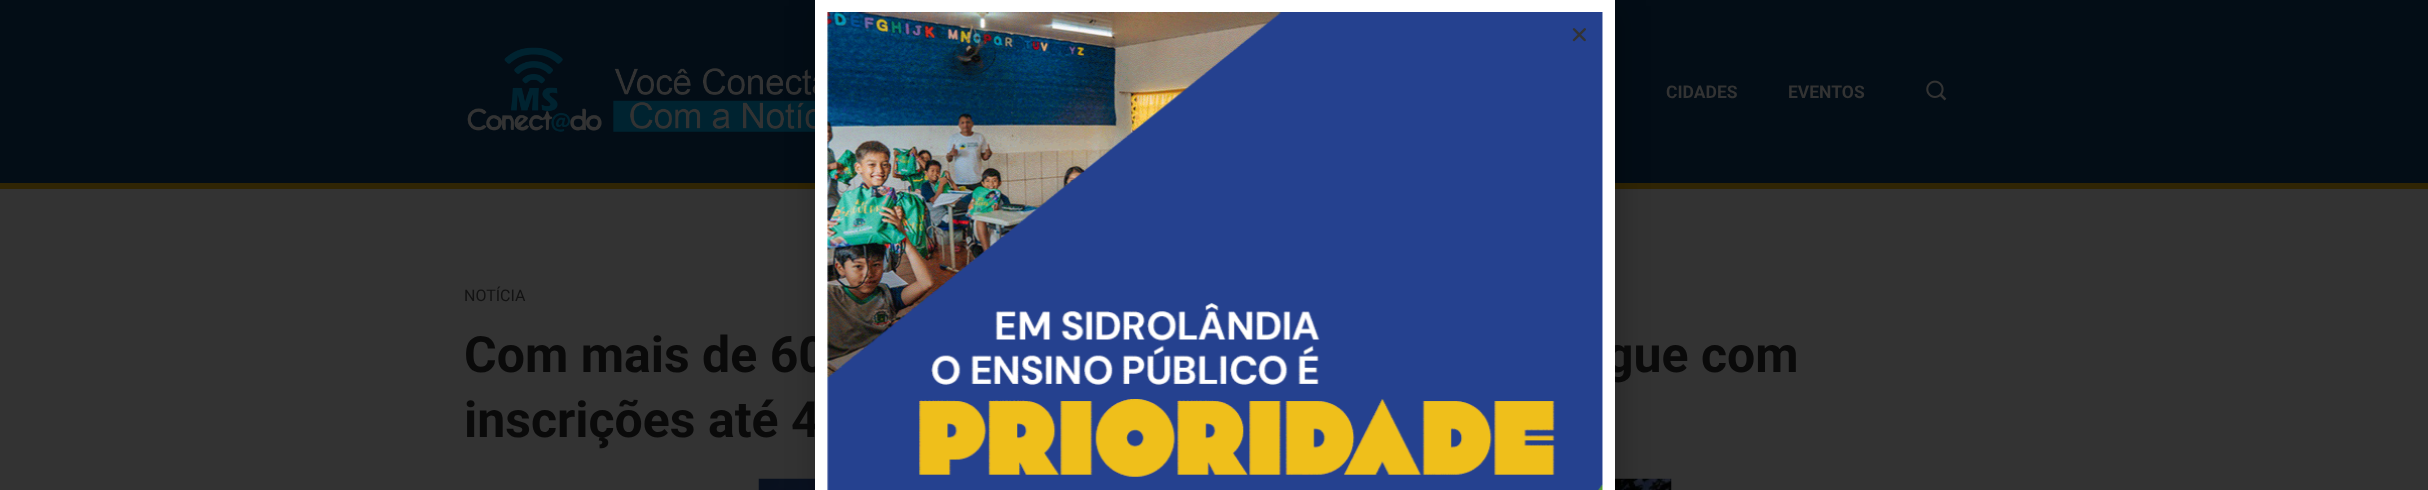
async function draw(canvas) {
  canvas.width = 2428
  canvas.height = 490
  const ctx = canvas.getContext('2d')
  ctx.miterLimit = 4
  ctx.fontKerning = 'normal'
  async function loadImage(src) {
    const img = new Image()
    img.src = src
    await img.decode()
    return img
  }

  ctx.fillStyle = '#333'
  ctx.fillRect(0, 0, 2428, 490)
  ctx.fillStyle = '#030d16'
  ctx.fillRect(0, 0, 2428, 183)
  ctx.fillStyle = '#302504'
  ctx.fillRect(0, 183, 2428, 6)
  ctx.drawImage(await loadImage('image2.png'), 467, 47, 348, 85)
  ctx.drawImage(await loadImage('image4.png'), 758, 478, 914, 12)
  ctx.fillStyle = '#00000033'
  ctx.filter = 'blur(14.5px)'
  ctx.beginPath()
  ctx.rect(814, 6, 807, 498)
  ctx.fill()
  ctx.filter = 'none'
  ctx.font = 'bold 50px Roboto'
  ctx.fillStyle = '#0a0a0a'
  ctx.fillText('Com mais de 60', 464, 372)
  ctx.fillText('gue com', 1605, 372)
  ctx.fillText('inscrições até 4', 464, 437)
  ctx.fillStyle = '#fff'
  ctx.fillRect(815, 0, 800, 490)
  ctx.drawImage(await loadImage('image0.png'), 827, 12, 776, 478)
  ctx.drawImage(await loadImage('image1.png'), 1572, 28, 14, 14)
  ctx.font = 'bold 17.5px Roboto'
  ctx.fillStyle = '#333'
  ctx.fillText('CIDADES', 1666, 98)
  ctx.fillText('EVENTOS', 1788, 98)
  ctx.drawImage(await loadImage('image3.png'), 1926, 80, 21, 21)
  ctx.font = '16px Roboto'
  ctx.fillStyle = '#121212'
  ctx.fillText('NOTÍCIA', 464, 301)
}

draw(document.querySelector('canvas'))
